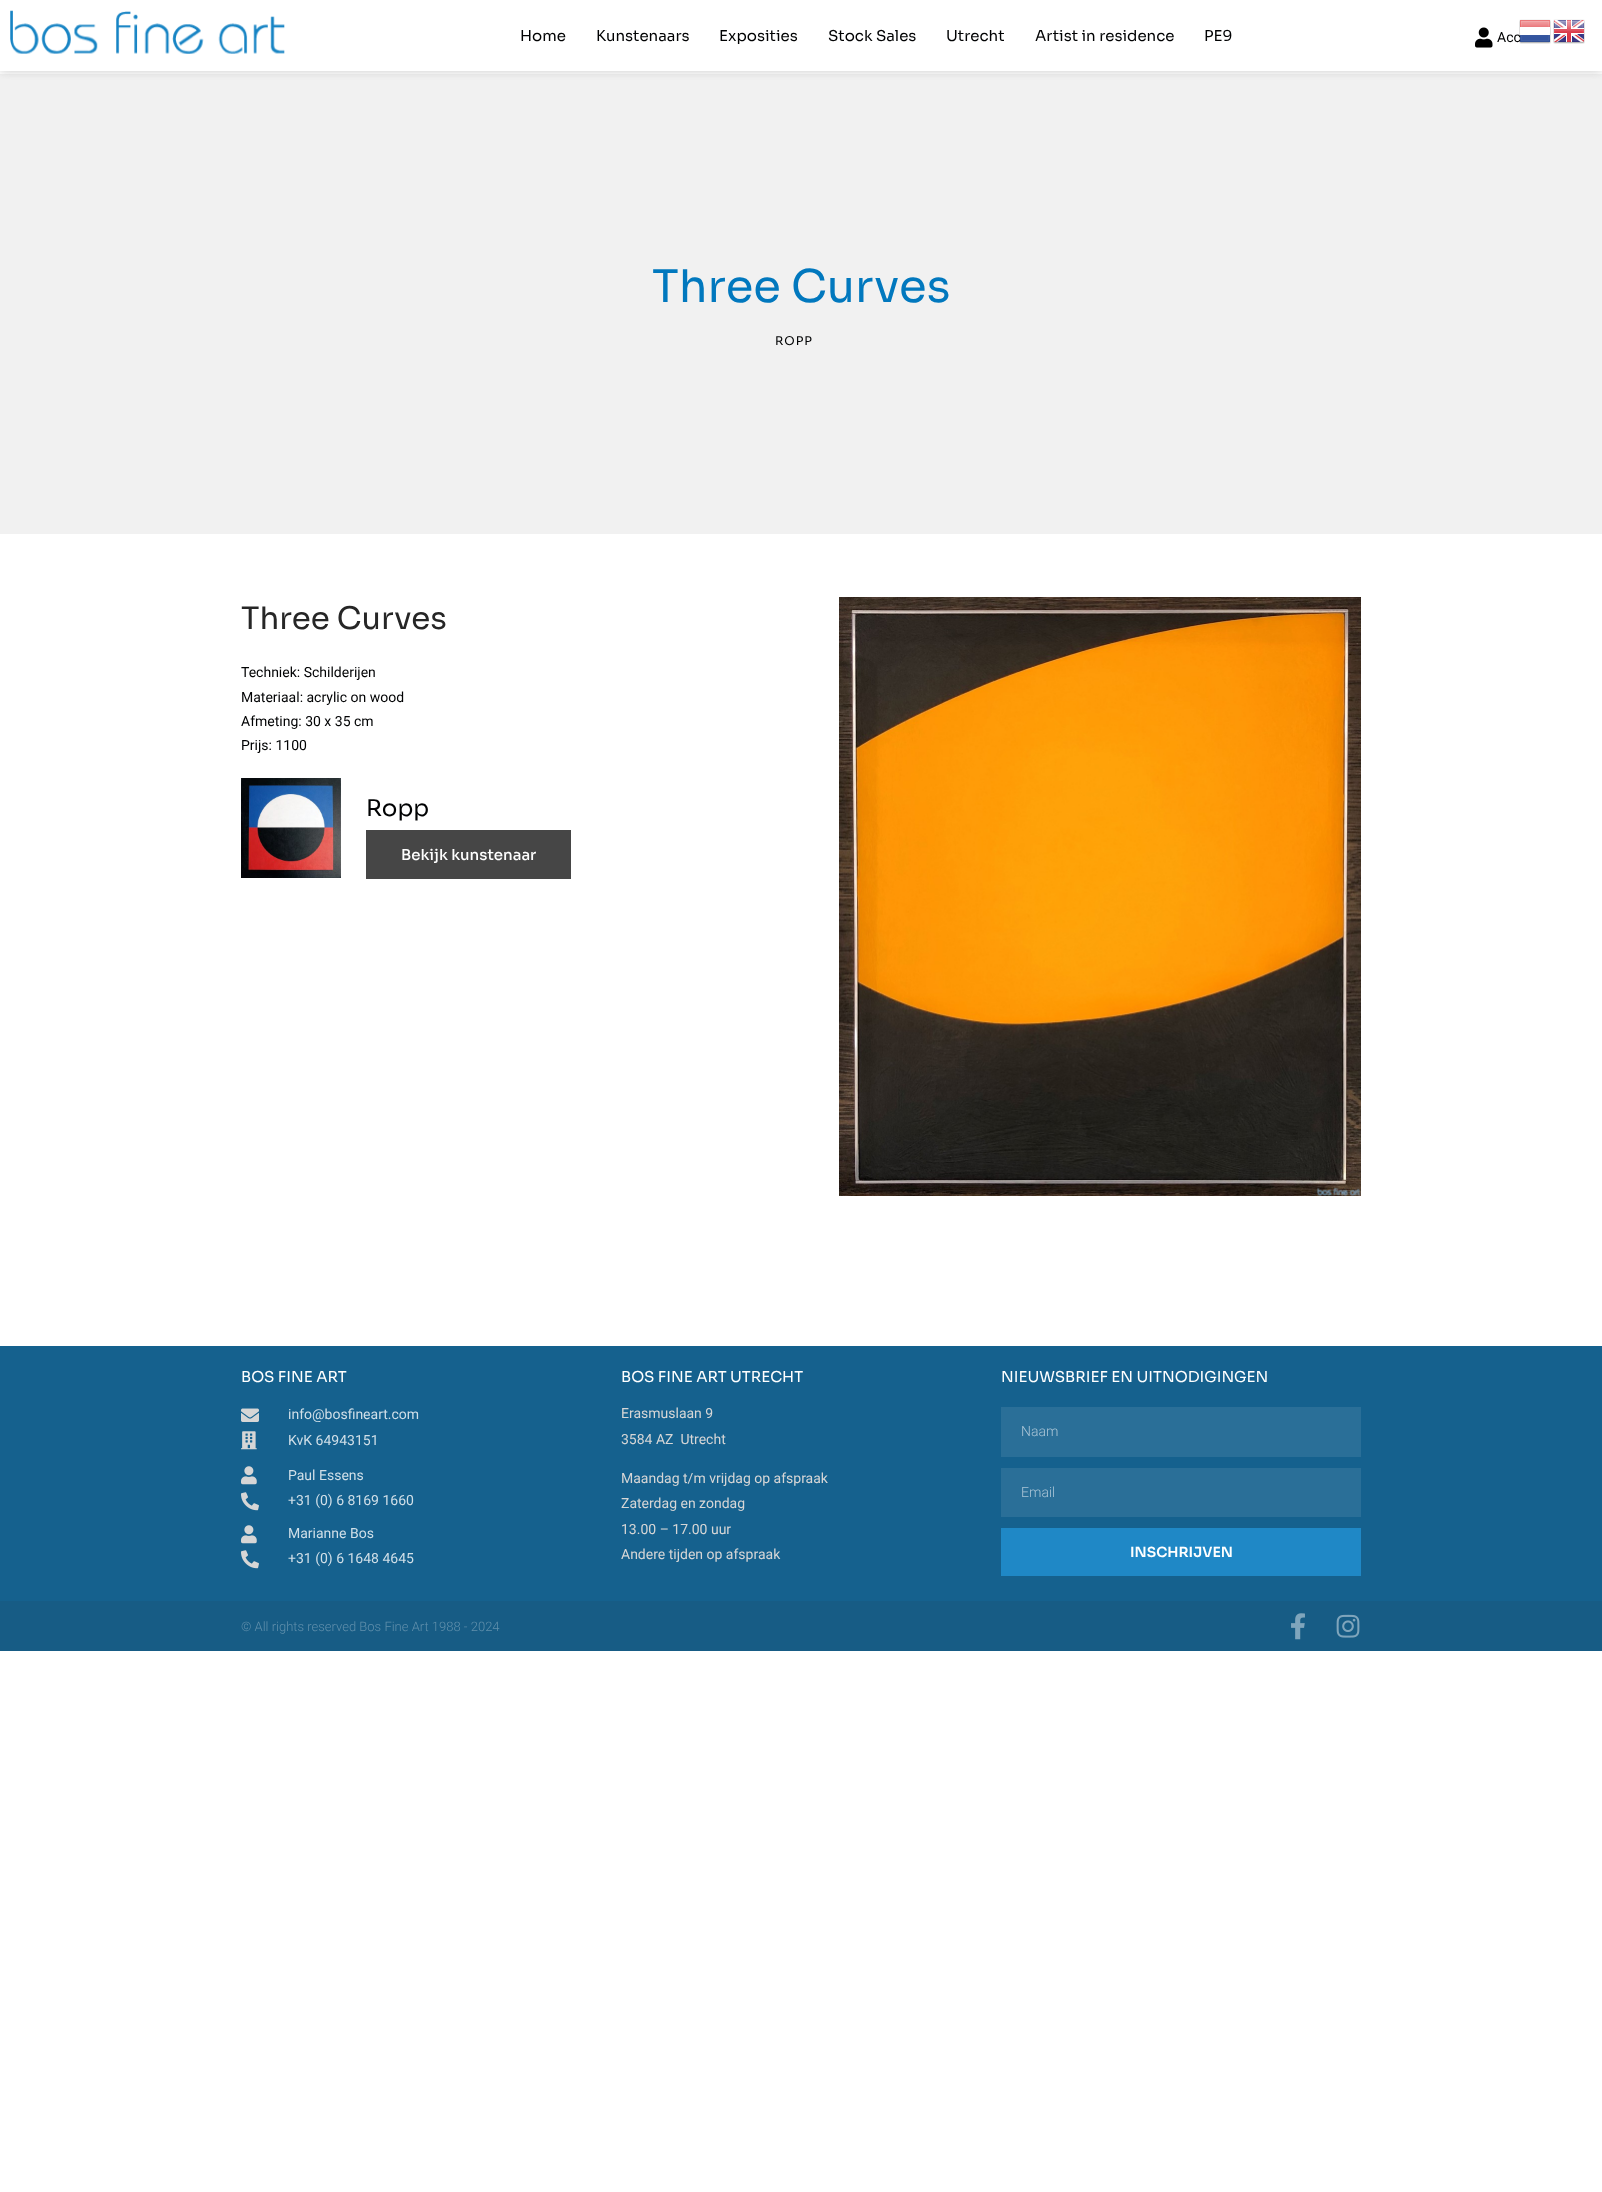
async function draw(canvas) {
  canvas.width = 1602
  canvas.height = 2192
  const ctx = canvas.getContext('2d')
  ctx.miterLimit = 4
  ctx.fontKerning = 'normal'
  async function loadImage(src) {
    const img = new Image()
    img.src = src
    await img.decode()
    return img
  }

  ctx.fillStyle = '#fff'
  ctx.fillRect(0, 0, 1602, 2192)
  ctx.fillStyle = '#f1f1f1'
  ctx.fillRect(0, 74, 1602, 460)
  ctx.save()
  ctx.beginPath()
  ctx.rect(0, 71, 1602, 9)
  ctx.clip()
  ctx.fillStyle = '#91919180'
  ctx.filter = 'blur(5px)'
  ctx.beginPath()
  ctx.rect(0, 0, 1602, 71)
  ctx.fill()
  ctx.filter = 'none'
  ctx.restore()
  ctx.drawImage(await loadImage('image0.png'), 10, 10, 275, 44)
  ctx.font = '15px Sora'
  ctx.fillStyle = '#010203'
  ctx.fillText('Home', 520, 41)
  ctx.fillText('Kunstenaars', 596, 41)
  ctx.fillText('Exposities', 719, 41)
  ctx.fillText('Stock Sales', 828, 41)
  ctx.fillText('Utrecht', 946, 41)
  ctx.fillText('Artist in residence', 1035, 41)
  ctx.fillText('PE9', 1204, 41)
  ctx.drawImage(await loadImage('image1.png'), 1475, 27, 18, 21)
  ctx.font = '14px Roboto'
  ctx.fillText('Acc', 1497, 42)
  ctx.drawImage(await loadImage('image2.png'), 1519, 19, 32, 25)
  ctx.drawImage(await loadImage('image3.png'), 1553, 19, 32, 25)
  ctx.font = '45px Sora'
  ctx.fillStyle = '#0178be'
  ctx.fillText('Three Curves', 652, 302)
  ctx.letterSpacing = '1px'
  ctx.font = '12px Sora'
  ctx.fillStyle = '#010203'
  ctx.fillText('ROPP', 775, 345)
  ctx.letterSpacing = '0px'
  ctx.font = '31px Sora'
  ctx.fillStyle = '#262626'
  ctx.fillText('Three Curves', 241, 629)
  ctx.font = '14px Roboto'
  ctx.fillStyle = '#010203'
  ctx.fillText('Techniek: Schilderijen', 241, 677)
  ctx.fillText('Materiaal: acrylic on wood', 241, 702)
  ctx.fillText('Afmeting: 30 x 35 cm', 241, 726)
  ctx.fillText('Prijs: 1100', 241, 750)
  ctx.drawImage(await loadImage('image4.png'), 241, 778, 100, 100)
  ctx.font = '23px Sora'
  ctx.fillText('Ropp', 366, 816)
  ctx.fillStyle = '#464646'
  ctx.fillRect(366, 830, 205, 49)
  ctx.font = '500 15px Sora'
  ctx.fillStyle = '#fff'
  ctx.fillText('Bekijk kunstenaar', 401, 860)
  ctx.drawImage(await loadImage('image5.png'), 839, 597, 522, 599)
  ctx.fillStyle = '#15618e'
  ctx.fillRect(0, 1346, 1602, 255)
  ctx.font = '15px Sora'
  ctx.fillStyle = '#fff'
  ctx.fillText('BOS FINE ART', 241, 1382)
  ctx.drawImage(await loadImage('image6.png'), 241, 1408, 18, 14)
  ctx.font = '14px Roboto'
  ctx.fillStyle = '#d0dfe8'
  ctx.fillText('info@bosfineart.com', 288, 1419)
  ctx.drawImage(await loadImage('image7.png'), 241, 1431, 16, 19)
  ctx.fillText('KvK 64943151', 288, 1445)
  ctx.drawImage(await loadImage('image8.png'), 241, 1466, 16, 19)
  ctx.fillText('Paul Essens', 288, 1480)
  ctx.drawImage(await loadImage('image9.png'), 241, 1492, 18, 19)
  ctx.fillText('+31 (0) 6 8169 1660', 288, 1505)
  ctx.drawImage(await loadImage('image8.png'), 241, 1525, 16, 19)
  ctx.fillText('Marianne Bos', 288, 1538)
  ctx.drawImage(await loadImage('image9.png'), 241, 1550, 18, 19)
  ctx.fillText('+31 (0) 6 1648 4645', 288, 1563)
  ctx.font = '15px Sora'
  ctx.fillStyle = '#fff'
  ctx.fillText('BOS FINE ART UTRECHT', 621, 1382)
  ctx.font = '14px Roboto'
  ctx.fillStyle = '#d6d6d6'
  ctx.fillText('Erasmuslaan 9', 621, 1418)
  ctx.fillText('3584 AZ  Utrecht', 621, 1444)
  ctx.fillText('Maandag t/m vrijdag op afspraak', 621, 1483)
  ctx.fillText('Zaterdag en zondag', 621, 1508)
  ctx.fillText('13.00 – 17.00 uur', 621, 1534)
  ctx.fillText('Andere tijden op afspraak', 621, 1559)
  ctx.font = '15px Sora'
  ctx.fillStyle = '#fff'
  ctx.fillText('NIEUWSBRIEF EN UITNODIGINGEN', 1001, 1382)
  ctx.fillStyle = '#2a6f98'
  ctx.fillRect(1001, 1407, 360, 50)
  ctx.font = '300 14px Roboto'
  ctx.fillStyle = '#aac5d6'
  ctx.fillText('Naam', 1021, 1436)
  ctx.fillStyle = '#2a6f98'
  ctx.fillRect(1001, 1468, 360, 49)
  ctx.fillStyle = '#aac5d6'
  ctx.fillText('Email', 1021, 1497)
  ctx.fillStyle = '#1f88c6'
  ctx.fillRect(1001, 1528, 360, 48)
  ctx.font = '600 14px Sora'
  ctx.fillStyle = '#fff'
  ctx.fillText('INSCHRIJVEN', 1130, 1557)
  ctx.fillStyle = '#175c85'
  ctx.fillRect(0, 1601, 1602, 50)
  ctx.font = '300 13px Roboto'
  ctx.fillStyle = '#6190ac'
  ctx.fillText('© All rights reserved Bos Fine Art 1988 - 2024', 241, 1631)
  ctx.drawImage(await loadImage('image10.png'), 1291, 1613, 14, 27)
  ctx.drawImage(await loadImage('image11.png'), 1336, 1614, 24, 24)
}

draw(document.querySelector('canvas'))
